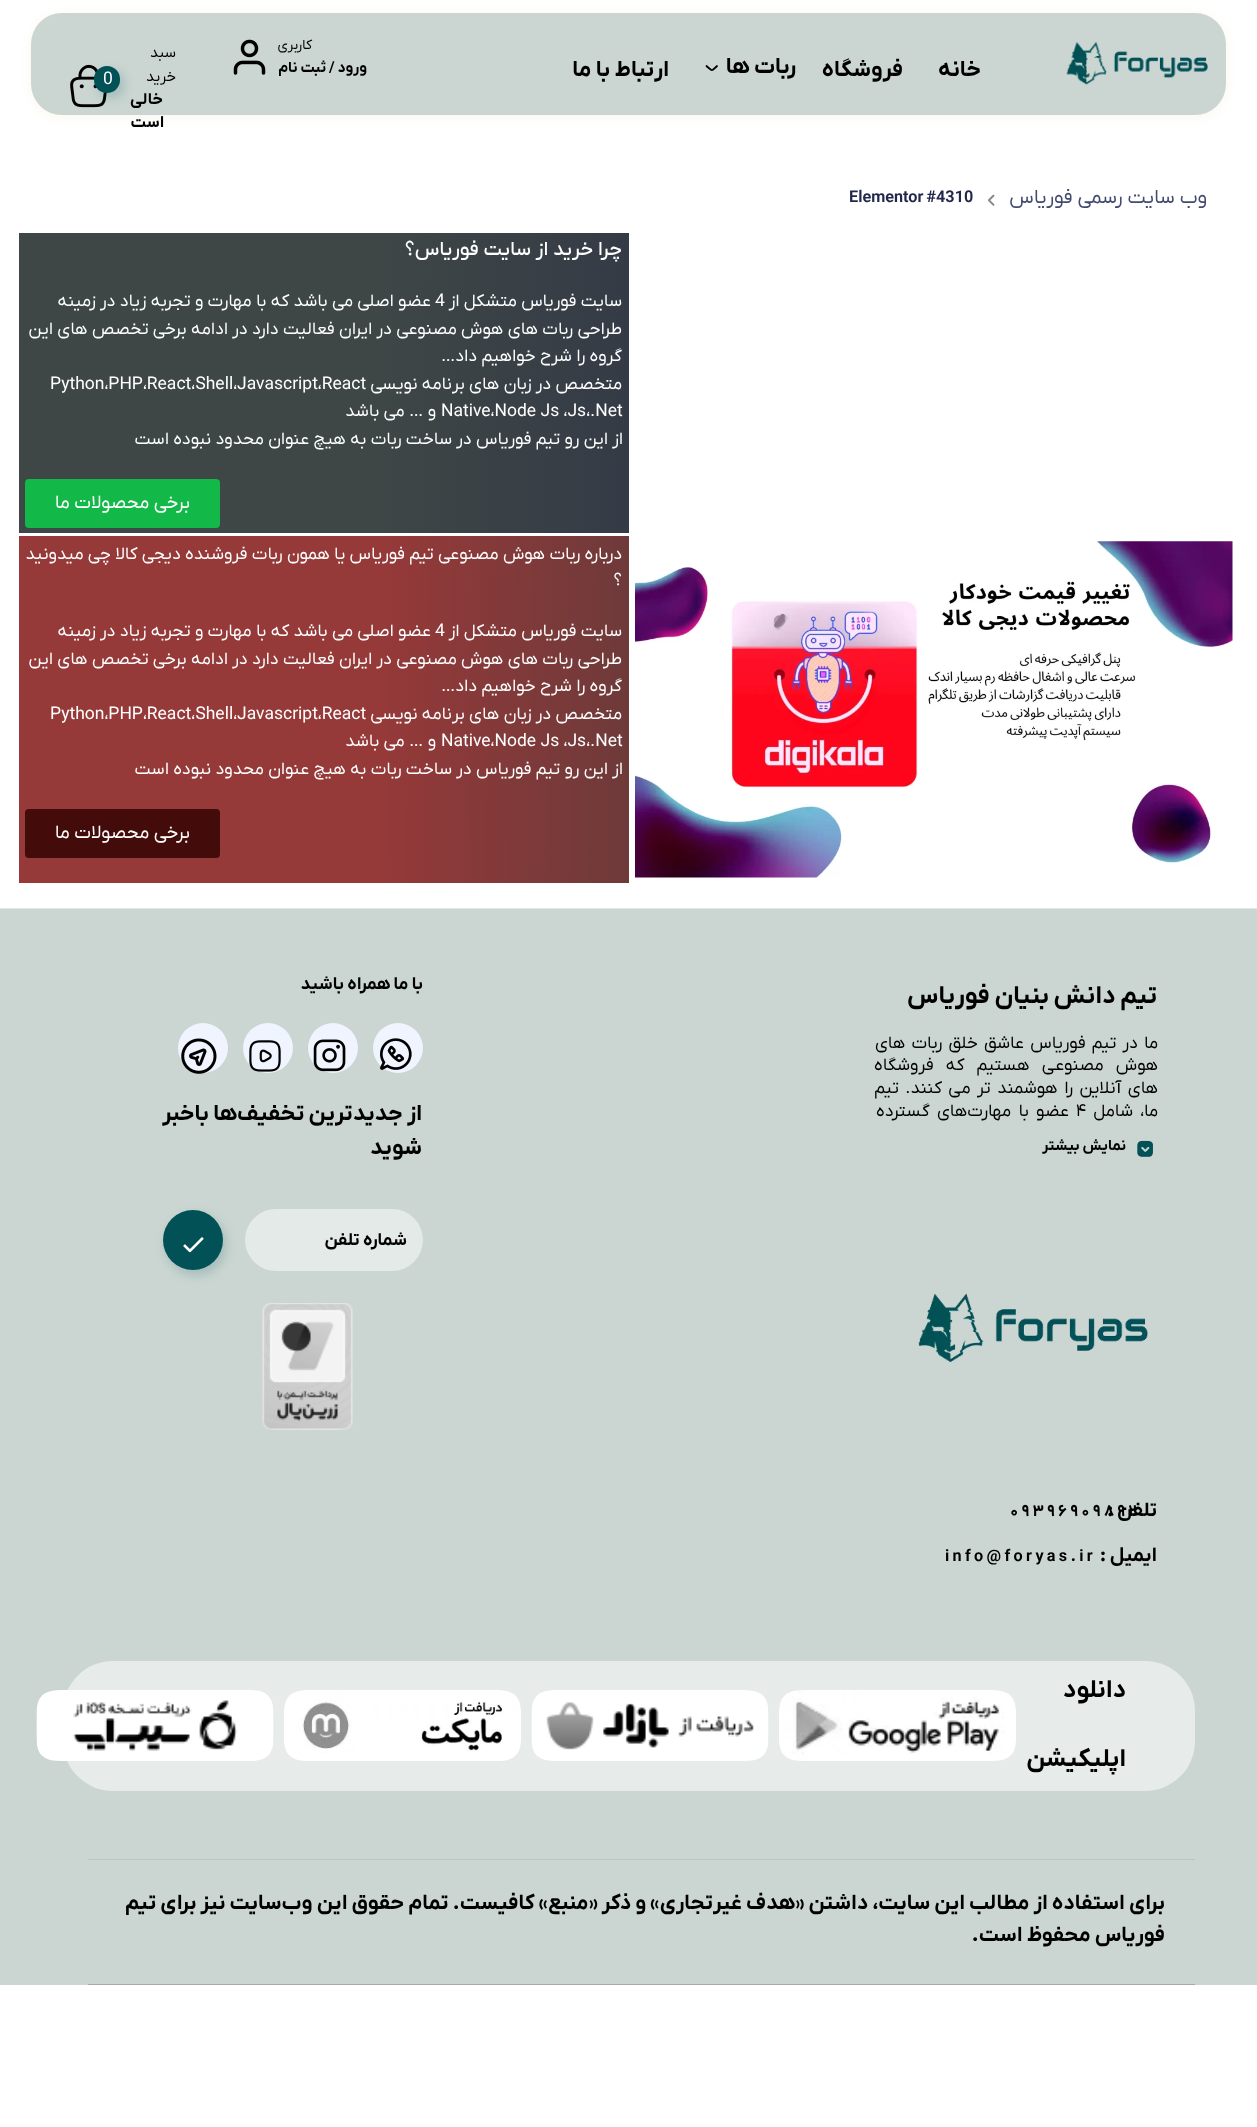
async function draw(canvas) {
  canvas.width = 1257
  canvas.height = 2127
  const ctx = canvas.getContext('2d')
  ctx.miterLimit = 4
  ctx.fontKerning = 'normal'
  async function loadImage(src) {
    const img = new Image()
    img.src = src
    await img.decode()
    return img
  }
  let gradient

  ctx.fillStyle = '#fff'
  ctx.fillRect(0, 0, 1257, 2127)
  ctx.fillStyle = '#faf7ef'
  ctx.filter = 'blur(6px)'
  ctx.beginPath()
  ctx.roundRect(31, 15, 1195, 103, 31)
  ctx.fill()
  ctx.filter = 'none'
  ctx.fillStyle = '#cbd6d2'
  ctx.beginPath()
  ctx.roundRect(31, 13, 1195, 102, 31)
  ctx.fill()
  ctx.drawImage(await loadImage('image0.png'), 1066, 42, 142, 43)
  ctx.direction = 'rtl'
  ctx.font = 'bold 22.5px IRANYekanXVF'
  ctx.fillStyle = '#000'
  ctx.fillText('خانه', 981, 76)
  ctx.fillText('فروشگاه', 903, 76)
  ctx.fillText('ربات ها', 796, 73)
  ctx.beginPath()
  ctx.moveTo(717, 66)
  ctx.bezierCurveTo(711, 71.5, 713, 71.5, 706.5, 66)
  ctx.strokeStyle = '#000'
  ctx.lineWidth = 1.8
  ctx.lineCap = 'round'
  ctx.lineJoin = 'round'
  ctx.stroke()
  ctx.fillText('ارتباط با ما', 669, 76)
  ctx.font = '14px IRANYekanXVF'
  ctx.fillText('کاربری', 312, 49)
  ctx.font = 'bold 15px IRANYekanXVF'
  ctx.fillText('ورود / ثبت نام', 367, 72)
  ctx.drawImage(await loadImage('image1.png'), 233, 39, 33, 36)
  ctx.font = '15px IRANYekanXVF'
  ctx.fillText('سبد', 176, 57)
  ctx.fillText('خرید', 176, 81)
  ctx.letterSpacing = '0.5px'
  ctx.font = 'bold 16.25px IRANYekanXVF'
  ctx.fillText('خالی', 163, 104)
  ctx.fillText('است', 164, 127)
  ctx.drawImage(await loadImage('image2.png'), 70, 64, 37, 44)
  ctx.fillStyle = '#02515633'
  ctx.filter = 'blur(5.5px)'
  ctx.beginPath()
  ctx.roundRect(98, 71, 26, 27, 13)
  ctx.fill()
  ctx.filter = 'none'
  ctx.fillStyle = '#025156'
  ctx.beginPath()
  ctx.roundRect(94, 66, 26, 27, 13)
  ctx.fill()
  ctx.letterSpacing = '0px'
  ctx.direction = 'ltr'
  ctx.font = '17.5px IRANYekanXVF'
  ctx.fillStyle = '#fff'
  ctx.fillText('0', 103, 84)
  ctx.direction = 'rtl'
  ctx.font = '20px IRANYekanXVF'
  ctx.fillStyle = '#434a70'
  ctx.fillText('وب سایت رسمی فوریاس', 1207, 203)
  ctx.drawImage(await loadImage('image3.png'), 988, 194, 7, 12)
  ctx.direction = 'ltr'
  ctx.font = 'bold 16.25px IRANYekanXVF'
  ctx.fillStyle = '#22284c'
  ctx.fillText('Elementor #4310', 849, 202)
  gradient = ctx.createLinearGradient(631, 388, 16, 377)
  gradient.addColorStop(0, '#353b46')
  gradient.addColorStop(0.4, '#3e4646')
  ctx.fillStyle = gradient
  ctx.fillRect(19, 233, 610, 300)
  ctx.direction = 'rtl'
  ctx.font = '500 20px IRANYekanXVF'
  ctx.fillStyle = '#fff'
  ctx.fillText('چرا خرید از سایت فوریاس؟', 622, 255)
  ctx.font = '17.5px IRANYekanXVF'
  ctx.fillText('سایت فوریاس متشکل از', 622, 306)
  ctx.direction = 'ltr'
  ctx.fillText('4', 435, 306)
  ctx.direction = 'rtl'
  ctx.fillText('عضو اصلی می باشد که با مهارت و تجربه زیاد در زمینه', 431, 306)
  ctx.fillText('طراحی ربات های هوش مصنوعی در ایران فعالیت دارد در ادامه برخی تخصص های این', 622, 334)
  ctx.fillText('گروه را شرح خواهیم داد…', 622, 361)
  ctx.fillText('متخصص در زبان های برنامه نویسی', 622, 389)
  ctx.direction = 'ltr'
  ctx.fillText('Python،PHP،React،Shell،Javascript،React', 50, 389)
  ctx.fillText('Native،Node Js ،Js،.Net', 441, 416)
  ctx.direction = 'rtl'
  ctx.fillText('و … می باشد', 436, 416)
  ctx.fillText('از این رو تیم فوریاس در ساخت ربات به هیچ عنوان محدود نبوده است', 623, 444)
  ctx.fillStyle = '#12b949'
  ctx.beginPath()
  ctx.roundRect(25, 479, 195, 49, 4)
  ctx.fill()
  ctx.font = '18.75px IRANYekanXVF'
  ctx.fillStyle = '#fff'
  ctx.fillText('برخی محصولات ما', 190, 508)
  ctx.drawImage(await loadImage('image4.png'), 635, 541, 598, 337)
  gradient = ctx.createLinearGradient(632, 715, 16, 704)
  gradient.addColorStop(0, '#6e3a3a')
  gradient.addColorStop(0.4, '#953939')
  ctx.fillStyle = gradient
  ctx.fillRect(19, 536, 610, 347)
  ctx.font = '17.5px IRANYekanXVF'
  ctx.fillStyle = '#fff'
  ctx.fillText('درباره ربات هوش مصنوعی تیم فوریاس یا همون ربات فروشنده دیجی کالا چی میدونید', 622, 559)
  ctx.fillText('؟', 622, 585)
  ctx.fillText('سایت فوریاس متشکل از', 622, 636)
  ctx.direction = 'ltr'
  ctx.fillText('4', 435, 636)
  ctx.direction = 'rtl'
  ctx.fillText('عضو اصلی می باشد که با مهارت و تجربه زیاد در زمینه', 431, 636)
  ctx.fillText('طراحی ربات های هوش مصنوعی در ایران فعالیت دارد در ادامه برخی تخصص های این', 622, 664)
  ctx.fillText('گروه را شرح خواهیم داد…', 622, 691)
  ctx.fillText('متخصص در زبان های برنامه نویسی', 622, 719)
  ctx.direction = 'ltr'
  ctx.fillText('Python،PHP،React،Shell،Javascript،React', 50, 719)
  ctx.fillText('Native،Node Js ،Js،.Net', 441, 746)
  ctx.direction = 'rtl'
  ctx.fillText('و … می باشد', 436, 746)
  ctx.fillText('از این رو تیم فوریاس در ساخت ربات به هیچ عنوان محدود نبوده است', 623, 774)
  ctx.fillStyle = '#440b0b'
  ctx.beginPath()
  ctx.roundRect(25, 809, 195, 49, 4)
  ctx.fill()
  ctx.font = '18.75px IRANYekanXVF'
  ctx.fillStyle = '#fff'
  ctx.fillText('برخی محصولات ما', 190, 838)
  ctx.fillStyle = '#cbd6d2'
  ctx.fillRect(0, 909, 1257, 1076)
  ctx.fillStyle = '#e2e8e6'
  ctx.fillRect(0, 908, 1257, 1)
  ctx.font = 'bold 25px IRANYekanXVF'
  ctx.fillStyle = '#000'
  ctx.fillText('تیم دانش بنیان فوریاس', 1157, 1003)
  ctx.letterSpacing = '-0.1px'
  ctx.wordSpacing = '2px'
  ctx.font = '17.5px IRANYekanXVF'
  ctx.fillText('ما در تیم فوریاس عاشق خلق ربات‌ های', 1158, 1048)
  ctx.wordSpacing = '8px'
  ctx.fillText('هوش مصنوعی هستیم که فروشگاه‌', 1158, 1070)
  ctx.wordSpacing = '2.25px'
  ctx.fillText('های آنلاین را هوشمند تر می‌ کنند. تیم', 1158, 1093)
  ctx.wordSpacing = '3px'
  ctx.fillText('ما، شامل', 1158, 1116)
  ctx.wordSpacing = '0px'
  ctx.direction = 'ltr'
  ctx.fillText('۴', 1076, 1116)
  ctx.wordSpacing = '3px'
  ctx.direction = 'rtl'
  ctx.fillText('عضو با مهارت‌های گسترده', 1069, 1116)
  ctx.drawImage(await loadImage('image5.png'), 1137, 1140, 16, 17)
  ctx.letterSpacing = '0px'
  ctx.wordSpacing = '0px'
  ctx.font = 'bold 15px IRANYekanXVF'
  ctx.fillText('نمایش بیشتر', 1126, 1150)
  ctx.drawImage(await loadImage('image6.png'), 918, 1293, 230, 70)
  ctx.font = 'bold 20px IRANYekanXVF'
  ctx.fillText('تلفن :', 1157, 1516)
  ctx.letterSpacing = '3.3px'
  ctx.direction = 'ltr'
  ctx.font = 'bold 16.25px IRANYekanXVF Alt'
  ctx.fillText('09396909892', 1010, 1516)
  ctx.letterSpacing = '0px'
  ctx.direction = 'rtl'
  ctx.font = 'bold 20px IRANYekanXVF'
  ctx.fillText('ایمیل :', 1157, 1561)
  ctx.letterSpacing = '3.3px'
  ctx.direction = 'ltr'
  ctx.font = 'bold 16.25px IRANYekanXVF'
  ctx.fillText('info@foryas.ir', 945, 1561)
  ctx.letterSpacing = '0px'
  ctx.direction = 'rtl'
  ctx.font = 'bold 17.5px IRANYekanXVF'
  ctx.fillText('با ما همراه باشید', 423, 989)
  ctx.fillStyle = '#eff4fe'
  ctx.beginPath()
  ctx.arc(398, 1048, 25, 0, 2 * Math.PI)
  ctx.fill()
  ctx.drawImage(await loadImage('image7.png'), 380, 1038, 32, 32)
  ctx.beginPath()
  ctx.arc(333, 1048, 25, 0, 2 * Math.PI)
  ctx.fill()
  ctx.drawImage(await loadImage('image8.png'), 313, 1039, 33, 33)
  ctx.beginPath()
  ctx.arc(268, 1048, 25, 0, 2 * Math.PI)
  ctx.fill()
  ctx.drawImage(await loadImage('image9.png'), 249, 1040, 32, 32)
  ctx.beginPath()
  ctx.arc(203, 1048, 25, 0, 2 * Math.PI)
  ctx.fill()
  ctx.drawImage(await loadImage('image10.png'), 181, 1038, 36, 36)
  ctx.font = 'bold 22.5px IRANYekanXVF'
  ctx.fillStyle = '#000'
  ctx.fillText('از جدیدترین تخفیف‌ها باخبر', 422, 1120)
  ctx.fillText('شوید', 422, 1154)
  ctx.fillStyle = '#e4eae8'
  ctx.beginPath()
  ctx.roundRect(245, 1209, 178, 62, 31)
  ctx.fill()
  ctx.font = 'bold 17.5px IRANYekanXVF'
  ctx.fillStyle = '#000'
  ctx.fillText('شماره تلفن', 407, 1245)
  ctx.fillStyle = '#02515633'
  ctx.filter = 'blur(5.5px)'
  ctx.beginPath()
  ctx.roundRect(166, 1215, 60, 60, 30)
  ctx.fill()
  ctx.filter = 'none'
  ctx.fillStyle = '#025156'
  ctx.beginPath()
  ctx.arc(193, 1240, 30, 0, 2 * Math.PI)
  ctx.fill()
  ctx.drawImage(await loadImage('image11.png'), 183, 1237, 21, 16)
  ctx.drawImage(await loadImage('image12.png'), 262, 1303, 91, 127)
  ctx.fillStyle = '#e7ecea'
  ctx.beginPath()
  ctx.roundRect(63, 1661, 1132, 130, 50)
  ctx.fill()
  ctx.font = 'bold 25px IRANYekanXVF'
  ctx.fillStyle = '#000'
  ctx.fillText('دانلود', 1126, 1697)
  ctx.fillText('اپلیکیشن', 1126, 1766)
  ctx.drawImage(await loadImage('image13.png'), 779, 1690, 237, 71)
  ctx.drawImage(await loadImage('image14.png'), 531, 1690, 238, 71)
  ctx.drawImage(await loadImage('image15.png'), 284, 1690, 237, 71)
  ctx.drawImage(await loadImage('image16.png'), 36, 1690, 238, 71)
  ctx.fillStyle = '#bac4c1'
  ctx.fillRect(88, 1859, 1107, 1)
  ctx.fillStyle = '#a2aba8'
  ctx.fillRect(88, 1984, 1107, 1)
  ctx.font = 'bold 21.25px IRANYekanXVF'
  ctx.fillStyle = '#000'
  ctx.fillText('برای استفاده از مطالب این سایت، داشتن «هدف غیرتجاری» و ذکر «منبع» کافیست. تمام حقوق اين وب‌سايت نیز برای تیم', 1165, 1909)
  ctx.fillText('فوریاس محفوظ است.', 1165, 1941)
}

draw(document.querySelector('canvas'))
